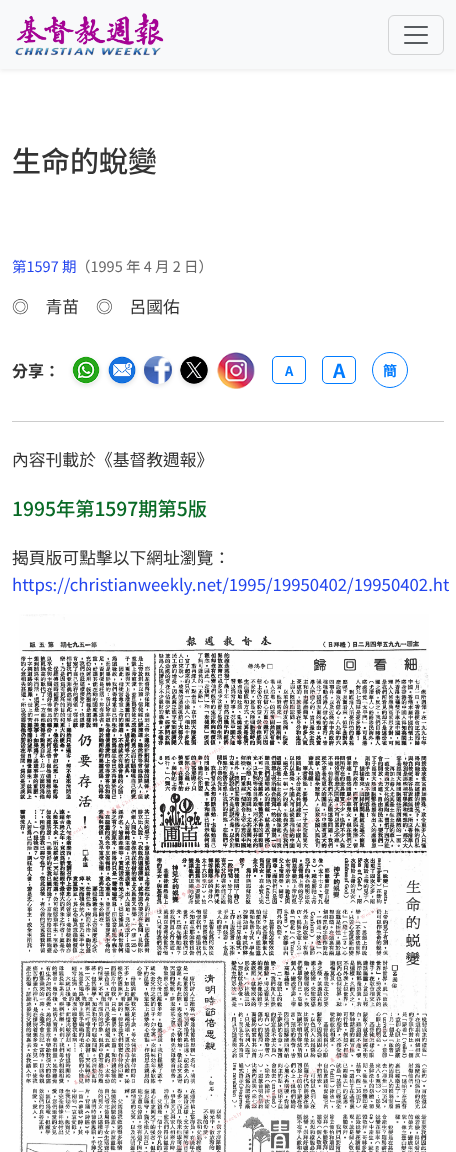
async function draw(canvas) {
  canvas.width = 456
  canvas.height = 1152
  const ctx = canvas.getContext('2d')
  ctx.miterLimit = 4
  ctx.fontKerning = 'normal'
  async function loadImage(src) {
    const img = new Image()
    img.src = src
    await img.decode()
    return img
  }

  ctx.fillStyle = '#fff'
  ctx.fillRect(0, 0, 456, 1152)
  ctx.fillStyle = '#00000012'
  ctx.filter = 'blur(2px)'
  ctx.beginPath()
  ctx.rect(0, 2, 456, 69)
  ctx.fill()
  ctx.filter = 'none'
  ctx.fillStyle = '#f8f9fa'
  ctx.fillRect(0, 0, 456, 69)
  ctx.drawImage(await loadImage('image0.png'), 15, 13, 149, 43)
  ctx.beginPath()
  ctx.roundRect(388.5, 15.5, 55, 39, 5.5)
  ctx.strokeStyle = '#d3d4d5'
  ctx.stroke()
  ctx.drawImage(await loadImage('image1.png'), 404, 26, 24, 18)
  ctx.font = '500 29px Noto Sans TC'
  ctx.fillStyle = '#333'
  ctx.fillText('生命的蛻變', 12, 172)
  ctx.font = '14.5px Noto Sans TC'
  ctx.fillStyle = '#24e'
  ctx.fillText('第1597 期', 12, 272)
  ctx.fillStyle = '#666'
  ctx.fillText('（1995 年 4 月 2 日）', 76, 272)
  ctx.font = '16.8px Noto Sans TC'
  ctx.fillStyle = '#333'
  ctx.fillText('◎　青苗　◎　呂國佑', 12, 313)
  ctx.font = 'bold 16px Noto Sans TC'
  ctx.fillText('分享：', 12, 377)
  ctx.save()
  ctx.beginPath()
  ctx.moveTo(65, 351)
  ctx.lineTo(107, 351)
  ctx.lineTo(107, 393)
  ctx.lineTo(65, 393)
  ctx.closePath()
  ctx.moveTo(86, 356)
  ctx.bezierCurveTo(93.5, 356, 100, 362.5, 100, 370)
  ctx.bezierCurveTo(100, 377.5, 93.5, 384, 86, 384)
  ctx.bezierCurveTo(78.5, 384, 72, 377.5, 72, 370)
  ctx.bezierCurveTo(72, 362.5, 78.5, 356, 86, 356)
  ctx.closePath()
  ctx.clip('evenodd')
  ctx.fillStyle = '#0000001a'
  ctx.filter = 'blur(2px)'
  ctx.beginPath()
  ctx.roundRect(72, 358, 28, 28, 14)
  ctx.fill()
  ctx.filter = 'none'
  ctx.restore()
  ctx.drawImage(await loadImage('image2.png'), 72, 356, 28, 28)
  ctx.fillStyle = '#0000001a'
  ctx.filter = 'blur(2px)'
  ctx.beginPath()
  ctx.roundRect(108, 358, 28, 28, 14)
  ctx.fill()
  ctx.filter = 'none'
  ctx.drawImage(await loadImage('image3.png'), 108, 356, 28, 28)
  ctx.filter = 'blur(2px)'
  ctx.beginPath()
  ctx.roundRect(144, 358, 28, 28, 14)
  ctx.fill()
  ctx.filter = 'none'
  ctx.drawImage(await loadImage('image4.png'), 144, 356, 28, 28)
  ctx.filter = 'blur(2px)'
  ctx.beginPath()
  ctx.roundRect(180, 358, 28, 28, 14)
  ctx.fill()
  ctx.filter = 'none'
  ctx.drawImage(await loadImage('image5.png'), 180, 356, 28, 28)
  ctx.drawImage(await loadImage('image6.png'), 217, 352, 38, 37)
  ctx.beginPath()
  ctx.roundRect(272.5, 356.5, 33, 27, 4.5)
  ctx.strokeStyle = '#007bff'
  ctx.stroke()
  ctx.font = 'bold 13px Noto Sans TC'
  ctx.fillStyle = '#007bff'
  ctx.fillText('A', 285, 376)
  ctx.beginPath()
  ctx.roundRect(322.5, 356.5, 33, 27, 4.5)
  ctx.stroke()
  ctx.font = 'bold 19.25px Noto Sans TC'
  ctx.fillText('A', 333, 378)
  ctx.beginPath()
  ctx.arc(390, 370, 17.5, 0, 2 * Math.PI)
  ctx.stroke()
  ctx.font = 'bold 14px Noto Sans TC'
  ctx.fillText('簡', 383, 376)
  ctx.fillStyle = '#ccc'
  ctx.fillRect(12, 421, 432, 1)
  ctx.font = '16.8px Noto Sans TC'
  ctx.fillStyle = '#333'
  ctx.fillText('內容刊載於《基督教週報》', 12, 466)
  ctx.font = '500 19.25px Noto Sans TC'
  ctx.fillStyle = '#096a26'
  ctx.fillText('1995年第1597期第5版', 12, 516)
  ctx.font = '16.8px Noto Sans TC'
  ctx.fillStyle = '#333'
  ctx.fillText('揭頁版可點擊以下網址瀏覽：', 12, 564)
  ctx.fillStyle = '#24e'
  ctx.fillText('https://christianweekly.net/1995/19950402/19950402.ht', 12, 591)
  ctx.drawImage(await loadImage('image7.png'), 19, 614, 410, 538)
}

draw(document.querySelector('canvas'))
